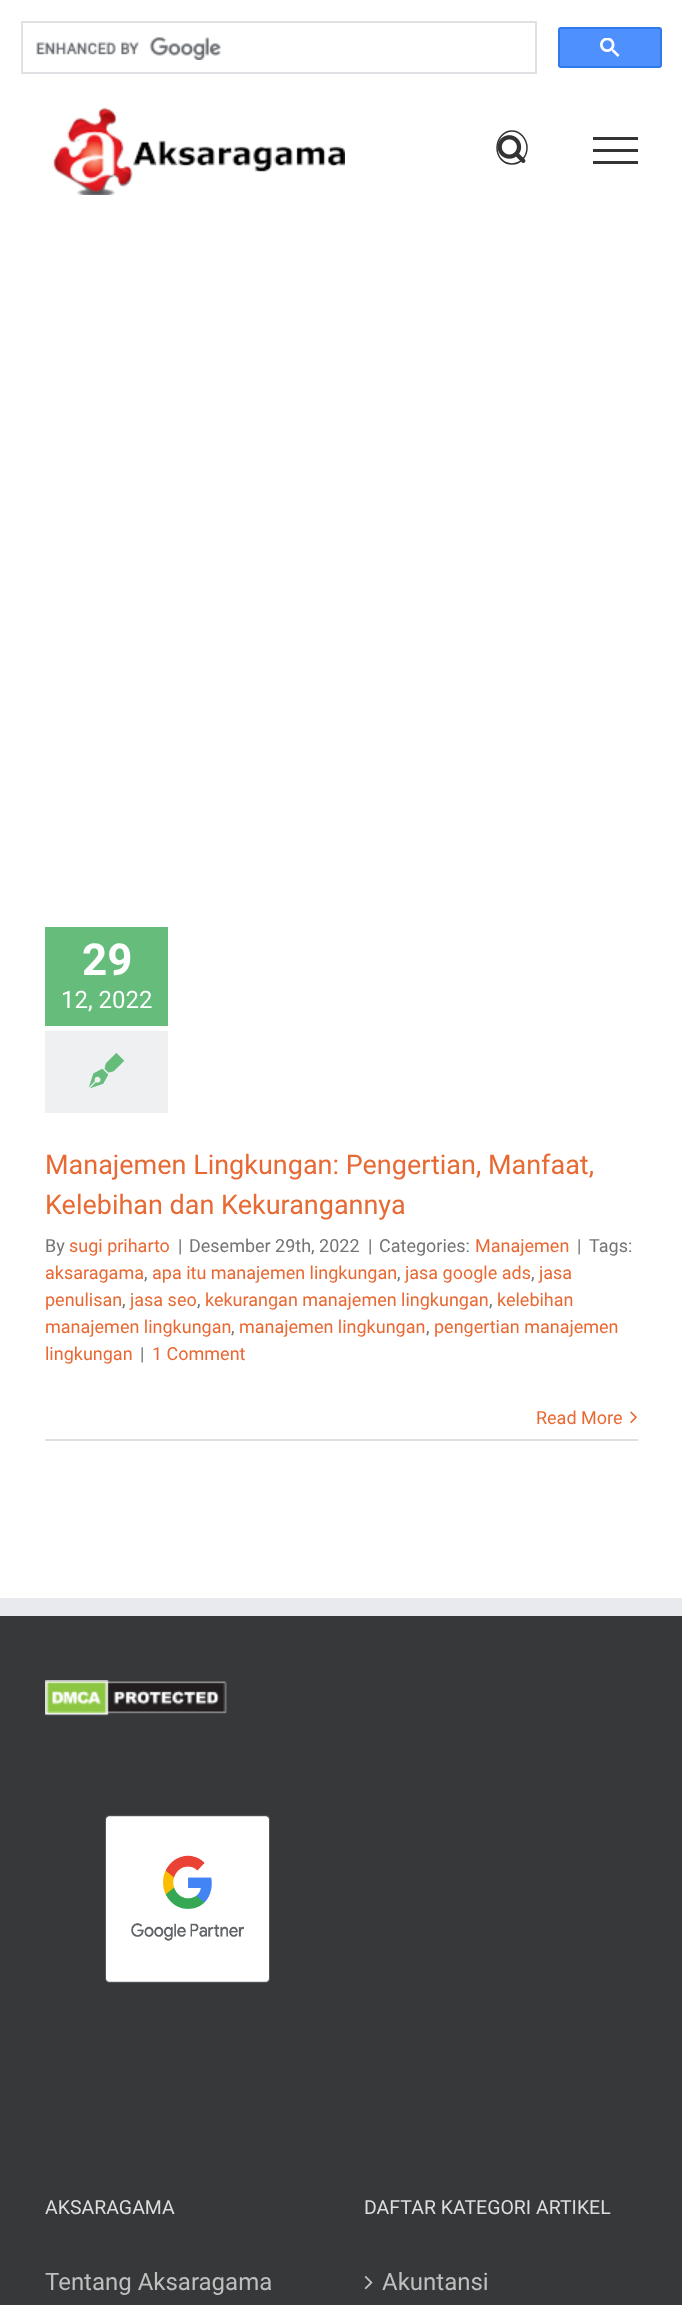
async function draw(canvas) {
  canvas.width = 682
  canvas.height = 2305
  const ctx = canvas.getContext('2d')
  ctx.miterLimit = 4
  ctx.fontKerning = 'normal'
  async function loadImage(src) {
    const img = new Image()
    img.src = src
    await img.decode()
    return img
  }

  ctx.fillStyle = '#fff'
  ctx.fillRect(0, 0, 682, 2305)
  ctx.strokeStyle = '#dfe1e5'
  ctx.lineWidth = 2
  ctx.strokeRect(22, 22, 514, 51)
  ctx.drawImage(await loadImage('image0.png'), 36, 37, 185, 23)
  ctx.fillStyle = '#4d90fe'
  ctx.beginPath()
  ctx.roundRect(559, 28, 102, 39, 2)
  ctx.fill()
  ctx.strokeStyle = '#3079ed'
  ctx.stroke()
  ctx.drawImage(await loadImage('image1.png'), 600, 38, 20, 19)
  ctx.drawImage(await loadImage('image2.png'), 53, 107, 292, 88)
  ctx.beginPath()
  ctx.moveTo(512, 131)
  ctx.bezierCurveTo(520, 131, 527, 138.5, 527, 148)
  ctx.bezierCurveTo(527, 157, 520, 164, 512, 164)
  ctx.bezierCurveTo(503.5, 164, 497, 157, 497, 148)
  ctx.bezierCurveTo(497, 138.5, 503.5, 131, 512, 131)
  ctx.closePath()
  ctx.strokeStyle = '#333'
  ctx.lineWidth = 1.5
  ctx.stroke()
  ctx.drawImage(await loadImage('image3.png'), 497, 135, 29, 28)
  ctx.fillStyle = '#333'
  ctx.fillRect(593, 137, 45, 3)
  ctx.fillRect(593, 149, 45, 3)
  ctx.fillRect(593, 161, 45, 3)
  ctx.fillStyle = '#65bc7b'
  ctx.fillRect(45, 927, 123, 99)
  ctx.font = 'bold 44px Roboto'
  ctx.fillStyle = '#fff'
  ctx.fillText('29', 82, 975)
  ctx.font = '24px Roboto'
  ctx.fillText('12, 2022', 61, 1008)
  ctx.fillStyle = '#eef0f2'
  ctx.fillRect(45, 1031, 123, 82)
  ctx.drawImage(await loadImage('image4.png'), 88, 1053, 37, 36)
  ctx.font = '27px Roboto'
  ctx.fillStyle = '#e86933'
  ctx.fillText('Manajemen Lingkungan: Pengertian, Manfaat,', 45, 1174)
  ctx.fillText('Kelebihan dan Kekurangannya', 45, 1214)
  ctx.font = '18px Roboto'
  ctx.fillStyle = '#747474'
  ctx.fillText('By', 45, 1252)
  ctx.fillStyle = '#e86933'
  ctx.fillText('sugi priharto', 69, 1252)
  ctx.fillStyle = '#747474'
  ctx.fillText('|', 178, 1252)
  ctx.fillText('Desember 29th, 2022', 189, 1252)
  ctx.fillText('|', 368, 1252)
  ctx.fillText('Categories:', 379, 1252)
  ctx.fillStyle = '#e86933'
  ctx.fillText('Manajemen', 475, 1252)
  ctx.fillStyle = '#747474'
  ctx.fillText('|', 577, 1252)
  ctx.fillText('Tags:', 589, 1252)
  ctx.fillStyle = '#e86933'
  ctx.fillText('aksaragama', 45, 1279)
  ctx.fillStyle = '#747474'
  ctx.fillText(',', 144, 1279)
  ctx.fillStyle = '#e86933'
  ctx.fillText('apa itu manajemen lingkungan', 152, 1279)
  ctx.fillStyle = '#747474'
  ctx.fillText(',', 397, 1279)
  ctx.fillStyle = '#e86933'
  ctx.fillText('jasa google ads', 405, 1279)
  ctx.fillStyle = '#747474'
  ctx.fillText(',', 531, 1279)
  ctx.fillStyle = '#e86933'
  ctx.fillText('jasa', 539, 1279)
  ctx.fillText('penulisan', 45, 1306)
  ctx.fillStyle = '#747474'
  ctx.fillText(',', 122, 1306)
  ctx.fillStyle = '#e86933'
  ctx.fillText('jasa seo', 130, 1306)
  ctx.fillStyle = '#747474'
  ctx.fillText(',', 197, 1306)
  ctx.fillStyle = '#e86933'
  ctx.fillText('kekurangan manajemen lingkungan', 205, 1306)
  ctx.fillStyle = '#747474'
  ctx.fillText(',', 489, 1306)
  ctx.fillStyle = '#e86933'
  ctx.fillText('kelebihan', 497, 1306)
  ctx.fillText('manajemen lingkungan', 45, 1333)
  ctx.fillStyle = '#747474'
  ctx.fillText(',', 231, 1333)
  ctx.fillStyle = '#e86933'
  ctx.fillText('manajemen lingkungan', 239, 1333)
  ctx.fillStyle = '#747474'
  ctx.fillText(',', 426, 1333)
  ctx.fillStyle = '#e86933'
  ctx.fillText('pengertian manajemen', 434, 1333)
  ctx.fillText('lingkungan', 45, 1360)
  ctx.fillStyle = '#747474'
  ctx.fillText('|', 140, 1360)
  ctx.fillStyle = '#e86933'
  ctx.fillText('1 Comment', 152, 1360)
  ctx.fillStyle = '#e0dede'
  ctx.fillRect(45, 1439, 593, 2)
  ctx.fillStyle = '#e86933'
  ctx.fillText('Read More', 536, 1424)
  ctx.drawImage(await loadImage('image5.png'), 630, 1411, 7, 13)
  ctx.fillStyle = '#363839'
  ctx.fillRect(0, 1616, 682, 689)
  ctx.fillStyle = '#e9eaee'
  ctx.fillRect(0, 1598, 682, 18)
  ctx.drawImage(await loadImage('image6.png'), 45, 1680, 182, 36)
  ctx.drawImage(await loadImage('image7.png'), 105, 1815, 165, 168)
  ctx.font = '19.5px Roboto'
  ctx.fillStyle = '#ddd'
  ctx.fillText('AKSARAGAMA', 45, 2214)
  ctx.font = '24px Roboto'
  ctx.fillStyle = '#bfbfbf'
  ctx.fillText('Tentang Aksaragama', 45, 2290)
  ctx.font = '19.5px Roboto'
  ctx.fillStyle = '#ddd'
  ctx.fillText('DAFTAR KATEGORI ARTIKEL', 364, 2214)
  ctx.drawImage(await loadImage('image8.png'), 364, 2276, 9, 14)
  ctx.font = '24px Roboto'
  ctx.fillStyle = '#bfbfbf'
  ctx.fillText('Akuntansi', 382, 2290)
}

draw(document.querySelector('canvas'))
